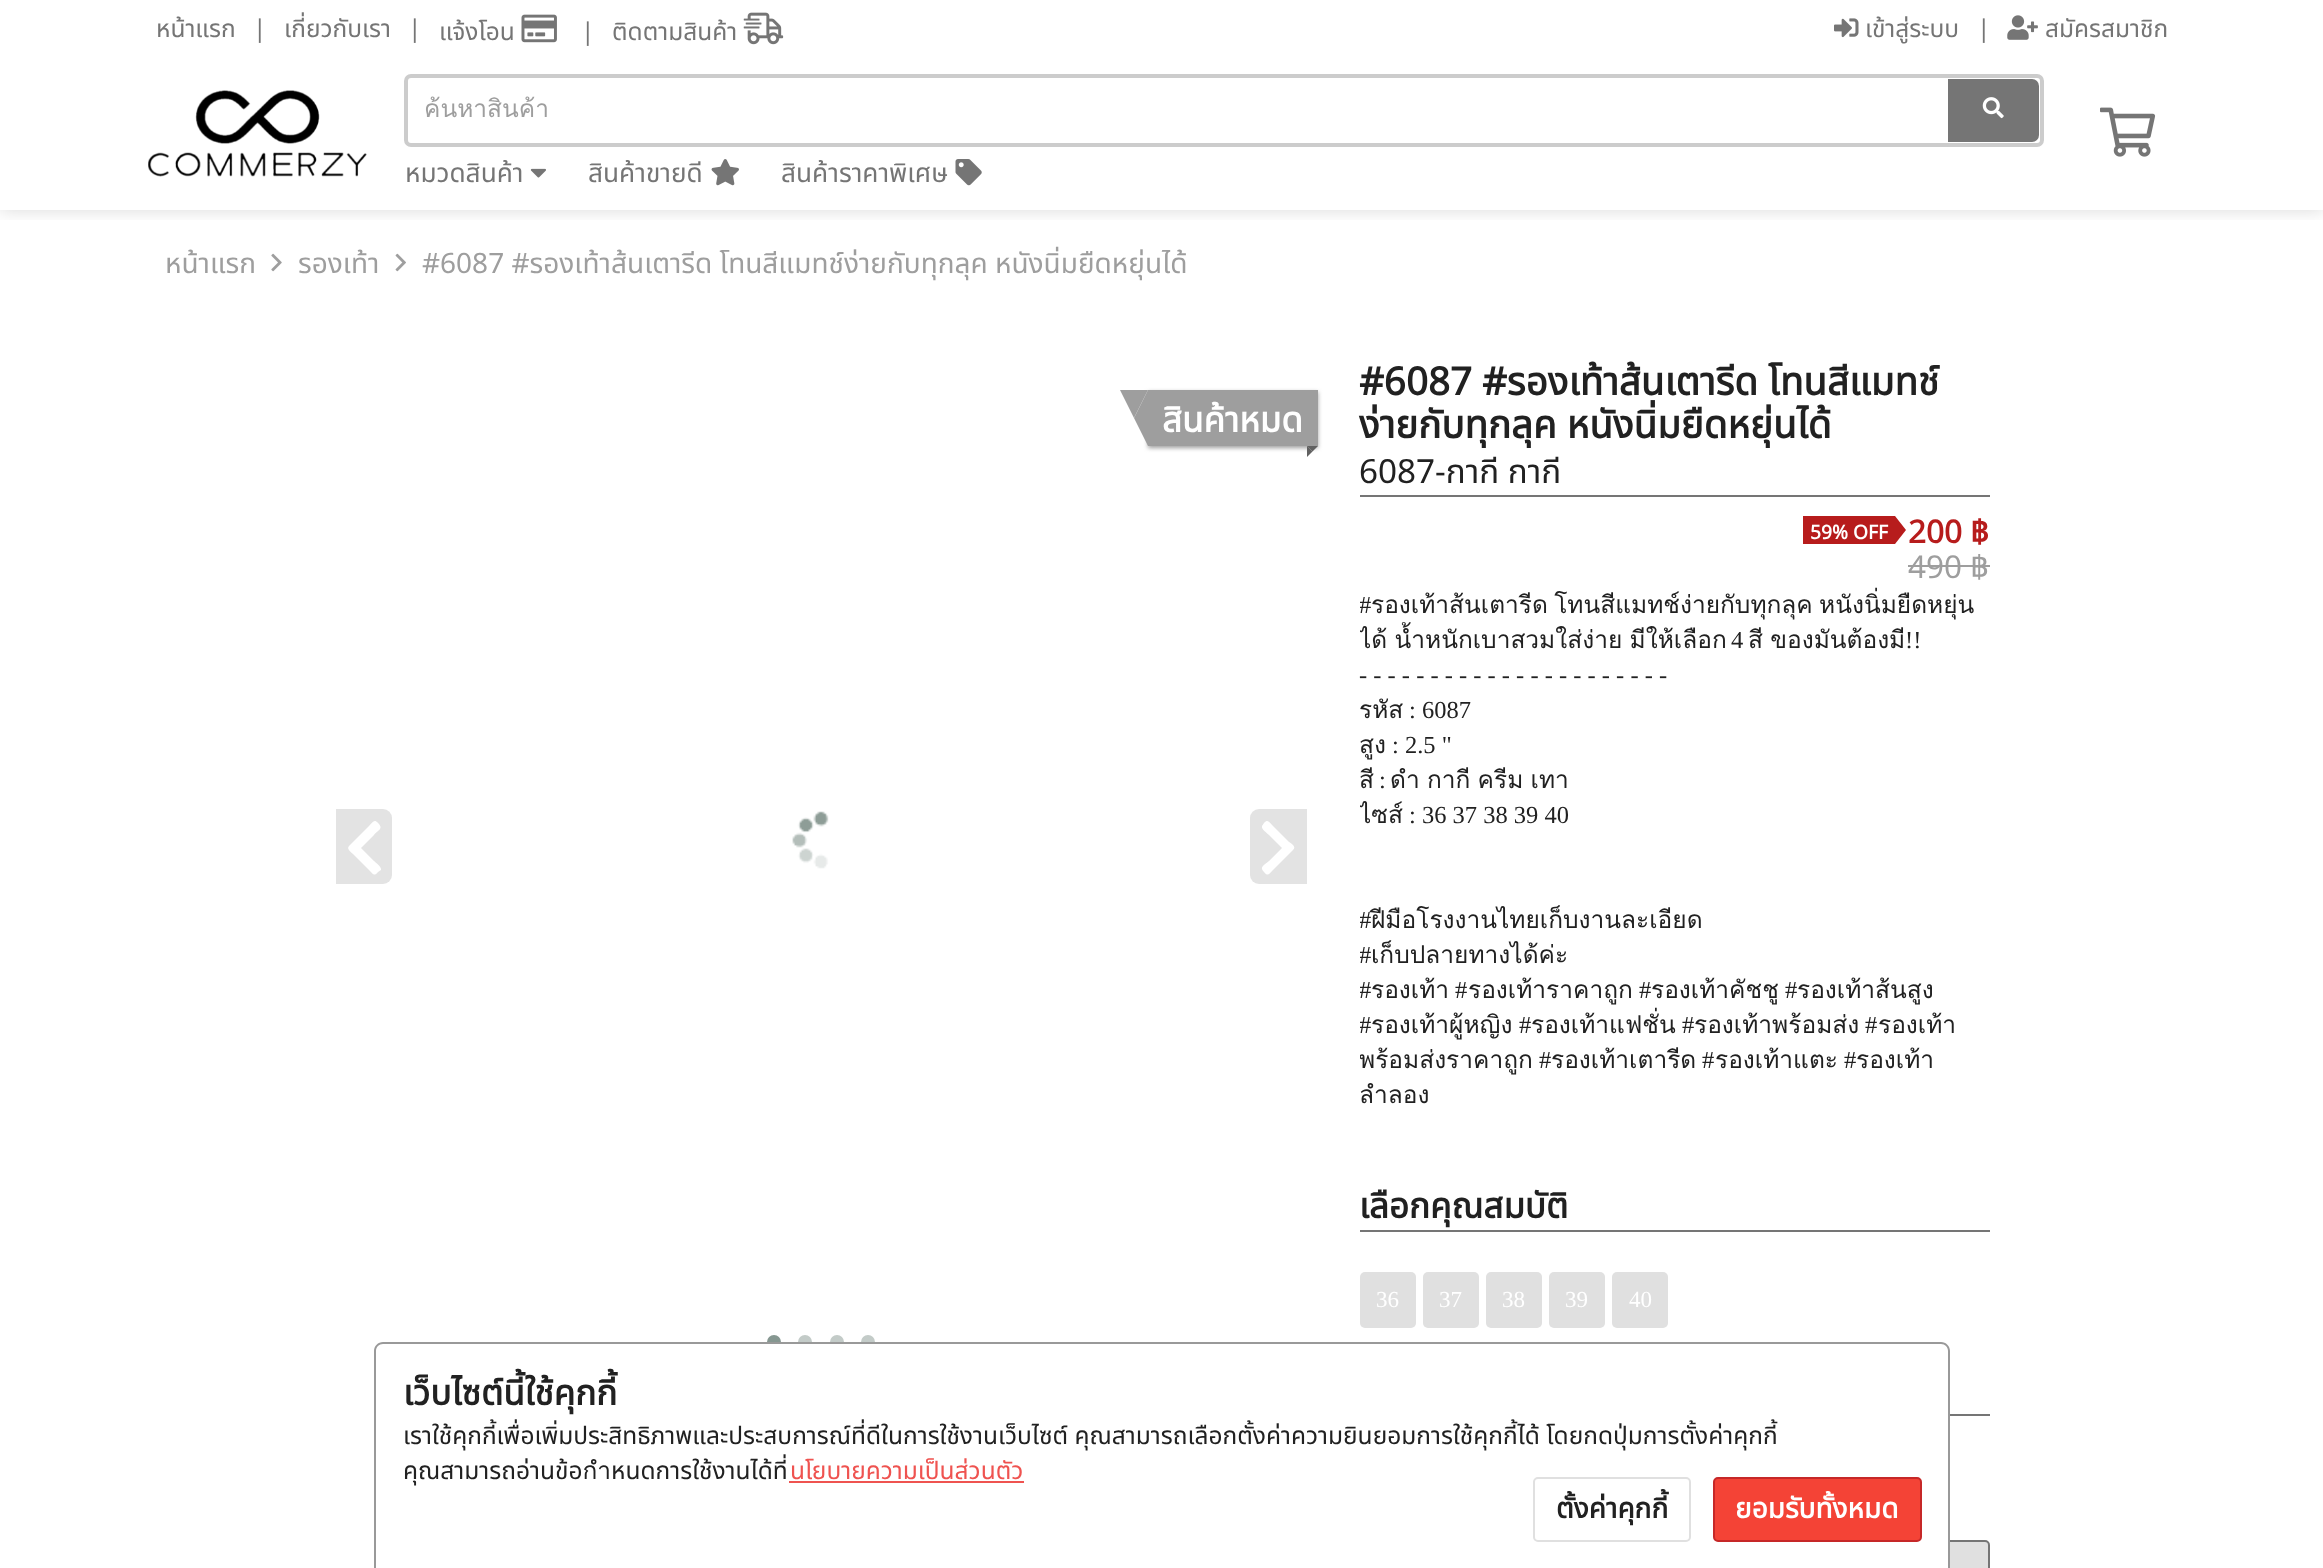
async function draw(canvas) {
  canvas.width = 2323
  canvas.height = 1568
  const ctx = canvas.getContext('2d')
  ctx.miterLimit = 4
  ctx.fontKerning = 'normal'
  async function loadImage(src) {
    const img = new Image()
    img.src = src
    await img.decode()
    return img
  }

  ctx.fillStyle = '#fff'
  ctx.fillRect(0, 0, 2323, 1568)
  ctx.save()
  ctx.beginPath()
  ctx.rect(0, 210, 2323, 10)
  ctx.clip()
  ctx.fillStyle = '#00000026'
  ctx.filter = 'blur(9px)'
  ctx.beginPath()
  ctx.rect(0, 0, 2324, 210)
  ctx.fill()
  ctx.filter = 'none'
  ctx.restore()
  ctx.font = '24.5px Noto Sans Thai'
  ctx.fillStyle = '#757575'
  ctx.fillText('หน้าแรก', 156, 37)
  ctx.fillText('|', 253, 37)
  ctx.fillText('เกี่ยวกับเรา', 284, 37)
  ctx.fillText('|', 408, 37)
  ctx.fillText('แจ้งโอน', 439, 40)
  ctx.drawImage(await loadImage('image0.png'), 521, 14, 36, 29)
  ctx.fillText('|', 581, 40)
  ctx.fillText('ติดตามสินค้า', 612, 40)
  ctx.drawImage(await loadImage('image1.png'), 743, 12, 41, 33)
  ctx.drawImage(await loadImage('image2.png'), 1834, 18, 25, 20)
  ctx.fillText('เข้าสู่ระบบ', 1865, 37)
  ctx.fillText('|', 1977, 37)
  ctx.drawImage(await loadImage('image3.png'), 2007, 15, 31, 25)
  ctx.fillText('สมัครสมาชิก', 2045, 37)
  ctx.drawImage(await loadImage('image4.png'), 148, 90, 219, 87)
  ctx.beginPath()
  ctx.roundRect(406, 76, 1636, 69, 5)
  ctx.strokeStyle = '#ccc'
  ctx.lineWidth = 4
  ctx.stroke()
  ctx.save()
  ctx.beginPath()
  ctx.rect(424, 89, 1547, 39)
  ctx.clip()
  ctx.font = '24.5px Loma'
  ctx.fillStyle = '#9e9e9e'
  ctx.fillText('ค้นหาสินค้า', 424, 117)
  ctx.restore()
  ctx.beginPath()
  ctx.roundRect(1948, 79, 91, 63, [0, 7, 7, 0])
  ctx.fill()
  ctx.drawImage(await loadImage('image5.png'), 1982, 97, 22, 22)
  ctx.font = '26.25px Noto Sans Thai'
  ctx.fillText('หมวดสินค้า', 405, 182)
  ctx.drawImage(await loadImage('image6.png'), 530, 168, 16, 10)
  ctx.fillText('สินค้าขายดี', 588, 182)
  ctx.drawImage(await loadImage('image7.png'), 711, 159, 28, 27)
  ctx.fillText('สินค้าราคาพิเศษ', 781, 182)
  ctx.drawImage(await loadImage('image8.png'), 955, 159, 27, 27)
  ctx.drawImage(await loadImage('image9.png'), 2100, 107, 56, 50)
  ctx.font = '28px Noto Sans Thai'
  ctx.fillStyle = '#9e9e9e'
  ctx.fillText('หน้าแรก', 165, 273)
  ctx.drawImage(await loadImage('image10.png'), 271, 253, 11, 19)
  ctx.fillText('รองเท้า', 298, 273)
  ctx.drawImage(await loadImage('image11.png'), 395, 253, 11, 19)
  ctx.fillText('#6087 #รองเท้าส้นเตารีด โทนสีแมทช์ง่ายกับทุกลุค หนังนิ่มยืดหยุ่นได้', 422, 273)
  ctx.filter = 'blur(2px)'
  ctx.beginPath()
  ctx.rect(1148, 392, 170, 56)
  ctx.fill()
  ctx.filter = 'none'
  ctx.fillRect(1148, 390, 170, 56)
  ctx.font = 'bold 35px Noto Sans Thai'
  ctx.fillStyle = '#fff'
  ctx.fillText('สินค้าหมด', 1162, 432)
  ctx.fillStyle = '#9e9e9e'
  ctx.beginPath()
  ctx.moveTo(1120, 390)
  ctx.lineTo(1148, 390)
  ctx.lineTo(1134, 418)
  ctx.closePath()
  ctx.fill()
  ctx.beginPath()
  ctx.moveTo(1148, 390)
  ctx.lineTo(1148, 446)
  ctx.lineTo(1134, 418)
  ctx.closePath()
  ctx.fill()
  ctx.fillStyle = '#616161'
  ctx.beginPath()
  ctx.moveTo(1307, 446)
  ctx.lineTo(1318, 446)
  ctx.lineTo(1312.5, 451.5)
  ctx.closePath()
  ctx.fill()
  ctx.beginPath()
  ctx.moveTo(1307, 457)
  ctx.lineTo(1307, 446)
  ctx.lineTo(1312.5, 451.5)
  ctx.closePath()
  ctx.fill()
  ctx.fillStyle = '#e3e3e3'
  ctx.beginPath()
  ctx.roundRect(336, 809, 56, 75, [0, 9, 9, 0])
  ctx.fill()
  ctx.fillStyle = '#fff'
  ctx.beginPath()
  ctx.moveTo(349, 846)
  ctx.lineTo(369, 826)
  ctx.bezierCurveTo(373, 822, 374, 819, 378, 823)
  ctx.bezierCurveTo(384, 829, 378, 830, 374, 835)
  ctx.lineTo(361, 848)
  ctx.lineTo(374, 861)
  ctx.bezierCurveTo(375, 862, 382, 867, 381, 870)
  ctx.lineTo(378, 872)
  ctx.bezierCurveTo(374, 877, 373, 874, 369, 870)
  ctx.lineTo(353, 854)
  ctx.bezierCurveTo(352, 853, 346, 849, 349, 846)
  ctx.closePath()
  ctx.fill()
  ctx.fillStyle = '#e3e3e3'
  ctx.beginPath()
  ctx.roundRect(1250, 809, 57, 75, [9, 0, 0, 9])
  ctx.fill()
  ctx.fillStyle = '#fff'
  ctx.beginPath()
  ctx.moveTo(1293, 850)
  ctx.lineTo(1273, 870)
  ctx.bezierCurveTo(1269, 874, 1268, 877, 1264, 872)
  ctx.bezierCurveTo(1259, 867, 1264, 865, 1269, 861)
  ctx.lineTo(1282, 848)
  ctx.lineTo(1269, 835)
  ctx.bezierCurveTo(1267, 833, 1261, 829, 1262, 826)
  ctx.lineTo(1264, 823)
  ctx.bezierCurveTo(1268, 819, 1269, 822, 1273, 826)
  ctx.lineTo(1289, 842)
  ctx.bezierCurveTo(1291, 843, 1297, 847, 1293, 850)
  ctx.closePath()
  ctx.fill()
  ctx.fillStyle = '#869791'
  ctx.beginPath()
  ctx.arc(774, 1342, 7, 0, 2 * Math.PI)
  ctx.fill()
  ctx.fillStyle = '#c3cbc8'
  ctx.beginPath()
  ctx.arc(805, 1342, 7, 0, 2 * Math.PI)
  ctx.fill()
  ctx.beginPath()
  ctx.arc(837, 1342, 7, 0, 2 * Math.PI)
  ctx.fill()
  ctx.beginPath()
  ctx.arc(868, 1342, 7, 0, 2 * Math.PI)
  ctx.fill()
  ctx.drawImage(await loadImage('image12.png'), 792, 811, 37, 58)
  ctx.font = 'bold 38.5px Noto Sans Thai'
  ctx.fillStyle = '#212121'
  ctx.fillText('#6087 #รองเท้าส้นเตารีด โทนสีแมทช์', 1359, 395)
  ctx.fillText('ง่ายกับทุกลุค หนังนิ่มยืดหยุ่นได้', 1359, 438)
  ctx.font = '33.25px Noto Sans Thai'
  ctx.fillText('6087-กากี กากี', 1359, 483)
  ctx.fillStyle = '#757575'
  ctx.fillRect(1360, 495, 630, 2)
  ctx.fillStyle = '#b71c1c'
  ctx.fillRect(1803, 516, 92, 28)
  ctx.font = 'bold 19.25px Noto Sans Thai'
  ctx.fillStyle = '#fff'
  ctx.fillText('59% OFF', 1810, 539)
  ctx.fillStyle = '#b71c1c'
  ctx.beginPath()
  ctx.moveTo(1895, 544)
  ctx.lineTo(1895, 516)
  ctx.lineTo(1906, 530)
  ctx.closePath()
  ctx.fill()
  ctx.font = 'bold 31.5px Noto Sans Thai'
  ctx.fillText('200 ฿', 1908, 543)
  ctx.font = '31.5px Noto Sans Thai'
  ctx.fillStyle = '#9e9e9e'
  ctx.fillText('490 ฿', 1908, 578)
  ctx.fillRect(1908, 565, 82, 2)
  ctx.save()
  ctx.beginPath()
  ctx.rect(1360, 588, 630, 569)
  ctx.clip()
  ctx.font = '24.5px Liberation Serif'
  ctx.fillStyle = '#212121'
  ctx.fillText('#', 1359, 613)
  ctx.restore()
  ctx.wordSpacing = '-2px'
  ctx.font = '24.5px Loma'
  ctx.fillStyle = '#212121'
  ctx.fillText('รองเท้าส้นเตารีด โทนสีแมทช์ง่ายกับทุกลุค หนังนิ่มยืดหยุ่น', 1371, 613)
  ctx.save()
  ctx.beginPath()
  ctx.rect(1360, 588, 630, 569)
  ctx.clip()
  ctx.wordSpacing = '-1px'
  ctx.fillText('ได้ น้ำหนักเบาสวมใส่ง่าย มีให้เลือก', 1359, 648)
  ctx.restore()
  ctx.wordSpacing = '0px'
  ctx.font = '24.5px Liberation Serif'
  ctx.fillText('4', 1731, 648)
  ctx.wordSpacing = '-1px'
  ctx.font = '24.5px Loma'
  ctx.fillText('สี ของมันต้องมี', 1748, 648)
  ctx.wordSpacing = '0px'
  ctx.font = '24.5px Liberation Serif'
  ctx.fillText('!!', 1905, 648)
  ctx.fillText('- - - - - - - - - - - - - - - - - - - - - -', 1359, 683)
  ctx.font = '24.5px Loma'
  ctx.fillText('รหัส', 1359, 718)
  ctx.font = '24.5px Liberation Serif'
  ctx.fillText(': 6087', 1409, 718)
  ctx.save()
  ctx.beginPath()
  ctx.rect(1360, 588, 630, 569)
  ctx.clip()
  ctx.font = '24.5px Loma'
  ctx.fillText('สูง', 1359, 753)
  ctx.restore()
  ctx.fillText(': 2.5 "', 1392, 753)
  ctx.save()
  ctx.beginPath()
  ctx.rect(1360, 588, 630, 569)
  ctx.clip()
  ctx.font = '24.5px Loma'
  ctx.fillText('สี', 1359, 788)
  ctx.restore()
  ctx.fillText(':', 1379, 788)
  ctx.wordSpacing = '-1px'
  ctx.font = '24.5px Loma'
  ctx.fillText('ดำ กากี ครีม เทา', 1390, 788)
  ctx.save()
  ctx.beginPath()
  ctx.rect(1360, 588, 630, 569)
  ctx.clip()
  ctx.wordSpacing = '0px'
  ctx.fillText('ไซส์', 1359, 823)
  ctx.restore()
  ctx.wordSpacing = '0px'
  ctx.font = '24.5px Liberation Serif'
  ctx.fillText(': 36 37 38 39 40', 1409, 823)
  ctx.save()
  ctx.beginPath()
  ctx.rect(1360, 588, 630, 569)
  ctx.clip()
  ctx.fillText('#', 1359, 928)
  ctx.restore()
  ctx.font = '24.5px Loma'
  ctx.fillText('ฝีมือโรงงานไทยเก็บงานละเอียด', 1371, 928)
  ctx.save()
  ctx.beginPath()
  ctx.rect(1360, 588, 630, 569)
  ctx.clip()
  ctx.font = '24.5px Liberation Serif'
  ctx.fillText('#', 1359, 963)
  ctx.restore()
  ctx.fillText('เก็บปลายทางได้ค่ะ', 1371, 963)
  ctx.save()
  ctx.beginPath()
  ctx.rect(1360, 588, 630, 569)
  ctx.clip()
  ctx.font = '24.5px Liberation Serif'
  ctx.fillText('#', 1359, 998)
  ctx.restore()
  ctx.fillText('รองเท้า', 1371, 998)
  ctx.font = '24.5px Liberation Serif'
  ctx.fillText('#', 1455, 998)
  ctx.font = '24.5px Loma'
  ctx.fillText('รองเท้าราคาถูก', 1468, 998)
  ctx.font = '24.5px Liberation Serif'
  ctx.fillText('#', 1639, 998)
  ctx.font = '24.5px Loma'
  ctx.fillText('รองเท้าคัชชู', 1651, 998)
  ctx.font = '24.5px Liberation Serif'
  ctx.fillText('#', 1785, 998)
  ctx.font = '24.5px Loma'
  ctx.fillText('รองเท้าส้นสูง', 1797, 998)
  ctx.save()
  ctx.beginPath()
  ctx.rect(1360, 588, 630, 569)
  ctx.clip()
  ctx.font = '24.5px Liberation Serif'
  ctx.fillText('#', 1359, 1033)
  ctx.restore()
  ctx.fillText('รองเท้าผู้หญิง', 1371, 1033)
  ctx.font = '24.5px Liberation Serif'
  ctx.fillText('#', 1519, 1033)
  ctx.font = '24.5px Loma'
  ctx.fillText('รองเท้าแฟชั่น', 1531, 1033)
  ctx.font = '24.5px Liberation Serif'
  ctx.fillText('#', 1682, 1033)
  ctx.font = '24.5px Loma'
  ctx.fillText('รองเท้าพร้อมส่ง', 1694, 1033)
  ctx.font = '24.5px Liberation Serif'
  ctx.fillText('#', 1865, 1033)
  ctx.font = '24.5px Loma'
  ctx.fillText('รองเท้า', 1878, 1033)
  ctx.save()
  ctx.beginPath()
  ctx.rect(1360, 588, 630, 569)
  ctx.clip()
  ctx.fillText('พร้อมส่งราคาถูก', 1359, 1068)
  ctx.restore()
  ctx.font = '24.5px Liberation Serif'
  ctx.fillText('#', 1539, 1068)
  ctx.font = '24.5px Loma'
  ctx.fillText('รองเท้าเตารีด', 1551, 1068)
  ctx.font = '24.5px Liberation Serif'
  ctx.fillText('#', 1702, 1068)
  ctx.font = '24.5px Loma'
  ctx.fillText('รองเท้าแตะ', 1715, 1068)
  ctx.font = '24.5px Liberation Serif'
  ctx.fillText('#', 1844, 1068)
  ctx.font = '24.5px Loma'
  ctx.fillText('รองเท้า', 1856, 1068)
  ctx.save()
  ctx.beginPath()
  ctx.rect(1360, 588, 630, 569)
  ctx.clip()
  ctx.fillText('ลำลอง', 1359, 1103)
  ctx.restore()
  ctx.font = 'bold 35px Noto Sans Thai'
  ctx.fillText('เลือกคุณสมบัติ', 1359, 1218)
  ctx.fillStyle = '#757575'
  ctx.fillRect(1360, 1230, 630, 2)
  ctx.fillStyle = '#e0e0e0'
  ctx.beginPath()
  ctx.roundRect(1360, 1272, 56, 56, 5)
  ctx.fill()
  ctx.font = '23px Liberation Serif'
  ctx.fillStyle = '#fff'
  ctx.fillText('36', 1376, 1307)
  ctx.fillStyle = '#e0e0e0'
  ctx.beginPath()
  ctx.roundRect(1423, 1272, 56, 56, 5)
  ctx.fill()
  ctx.fillStyle = '#fff'
  ctx.fillText('37', 1439, 1307)
  ctx.fillStyle = '#e0e0e0'
  ctx.beginPath()
  ctx.roundRect(1486, 1272, 56, 56, 5)
  ctx.fill()
  ctx.fillStyle = '#fff'
  ctx.fillText('38', 1502, 1307)
  ctx.fillStyle = '#e0e0e0'
  ctx.beginPath()
  ctx.roundRect(1549, 1272, 56, 56, 5)
  ctx.fill()
  ctx.fillStyle = '#fff'
  ctx.fillText('39', 1565, 1307)
  ctx.fillStyle = '#e0e0e0'
  ctx.beginPath()
  ctx.roundRect(1612, 1272, 56, 56, 5)
  ctx.fill()
  ctx.fillStyle = '#fff'
  ctx.fillText('40', 1629, 1307)
  ctx.fillStyle = '#757575'
  ctx.fillRect(1950, 1414, 40, 2)
  ctx.fillStyle = '#e0e0e0'
  ctx.beginPath()
  ctx.roundRect(1361, 1541, 628, 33, 4)
  ctx.fill()
  ctx.strokeStyle = '#757575'
  ctx.lineWidth = 2
  ctx.stroke()
  ctx.fillStyle = '#fff'
  ctx.beginPath()
  ctx.roundRect(375, 1342, 1575, 226, [9, 9, 0, 0])
  ctx.fill()
  ctx.fillStyle = '#999'
  ctx.beginPath()
  ctx.moveTo(383, 1342)
  ctx.lineTo(1941, 1342)
  ctx.bezierCurveTo(1946, 1342, 1950, 1346, 1950, 1351)
  ctx.lineTo(1950, 1568)
  ctx.lineTo(374, 1568)
  ctx.lineTo(374, 1351)
  ctx.bezierCurveTo(374, 1346, 378, 1342, 383, 1342)
  ctx.closePath()
  ctx.moveTo(383, 1344)
  ctx.lineTo(1941, 1344)
  ctx.bezierCurveTo(1945, 1344, 1948, 1347, 1948, 1351)
  ctx.lineTo(1948, 1568)
  ctx.lineTo(376, 1568)
  ctx.lineTo(376, 1351)
  ctx.bezierCurveTo(376, 1347, 379, 1344, 383, 1344)
  ctx.closePath()
  ctx.fill('evenodd')
  ctx.font = 'bold 35px Noto Sans Thai'
  ctx.fillStyle = '#212121'
  ctx.fillText('เว็บไซต์นี้ใช้คุกกี้', 403, 1405)
  ctx.font = '24.5px Noto Sans Thai'
  ctx.fillText('เราใช้คุกกี้เพื่อเพิ่มประสิทธิภาพและประสบการณ์ที่ดีในการใช้งานเว็บไซต์ คุณสามารถเลือกตั้งค่าความยินยอมการใช้คุกกี้ได้ โดยกดปุ่มการตั้งค่าคุกกี้', 403, 1444)
  ctx.fillText('คุณสามารถอ่านข้อกำหนดการใช้งานได้ที่', 403, 1479)
  ctx.fillStyle = '#ef5350'
  ctx.fillText('นโยบายความเป็นส่วนตัว', 790, 1479)
  ctx.fillRect(789, 1481, 235, 2)
  ctx.beginPath()
  ctx.roundRect(1534, 1478, 156, 63, 4)
  ctx.strokeStyle = '#e0e0e0'
  ctx.stroke()
  ctx.font = 'bold 28px Noto Sans Thai'
  ctx.fillStyle = '#212121'
  ctx.fillText('ตั้งค่าคุกกี้', 1556, 1518)
  ctx.fillStyle = '#f44336'
  ctx.beginPath()
  ctx.roundRect(1714, 1478, 207, 63, 4)
  ctx.fill()
  ctx.strokeStyle = '#c62828'
  ctx.stroke()
  ctx.fillStyle = '#fff'
  ctx.fillText('ยอมรับทั้งหมด', 1735, 1518)
}

draw(document.querySelector('canvas'))
